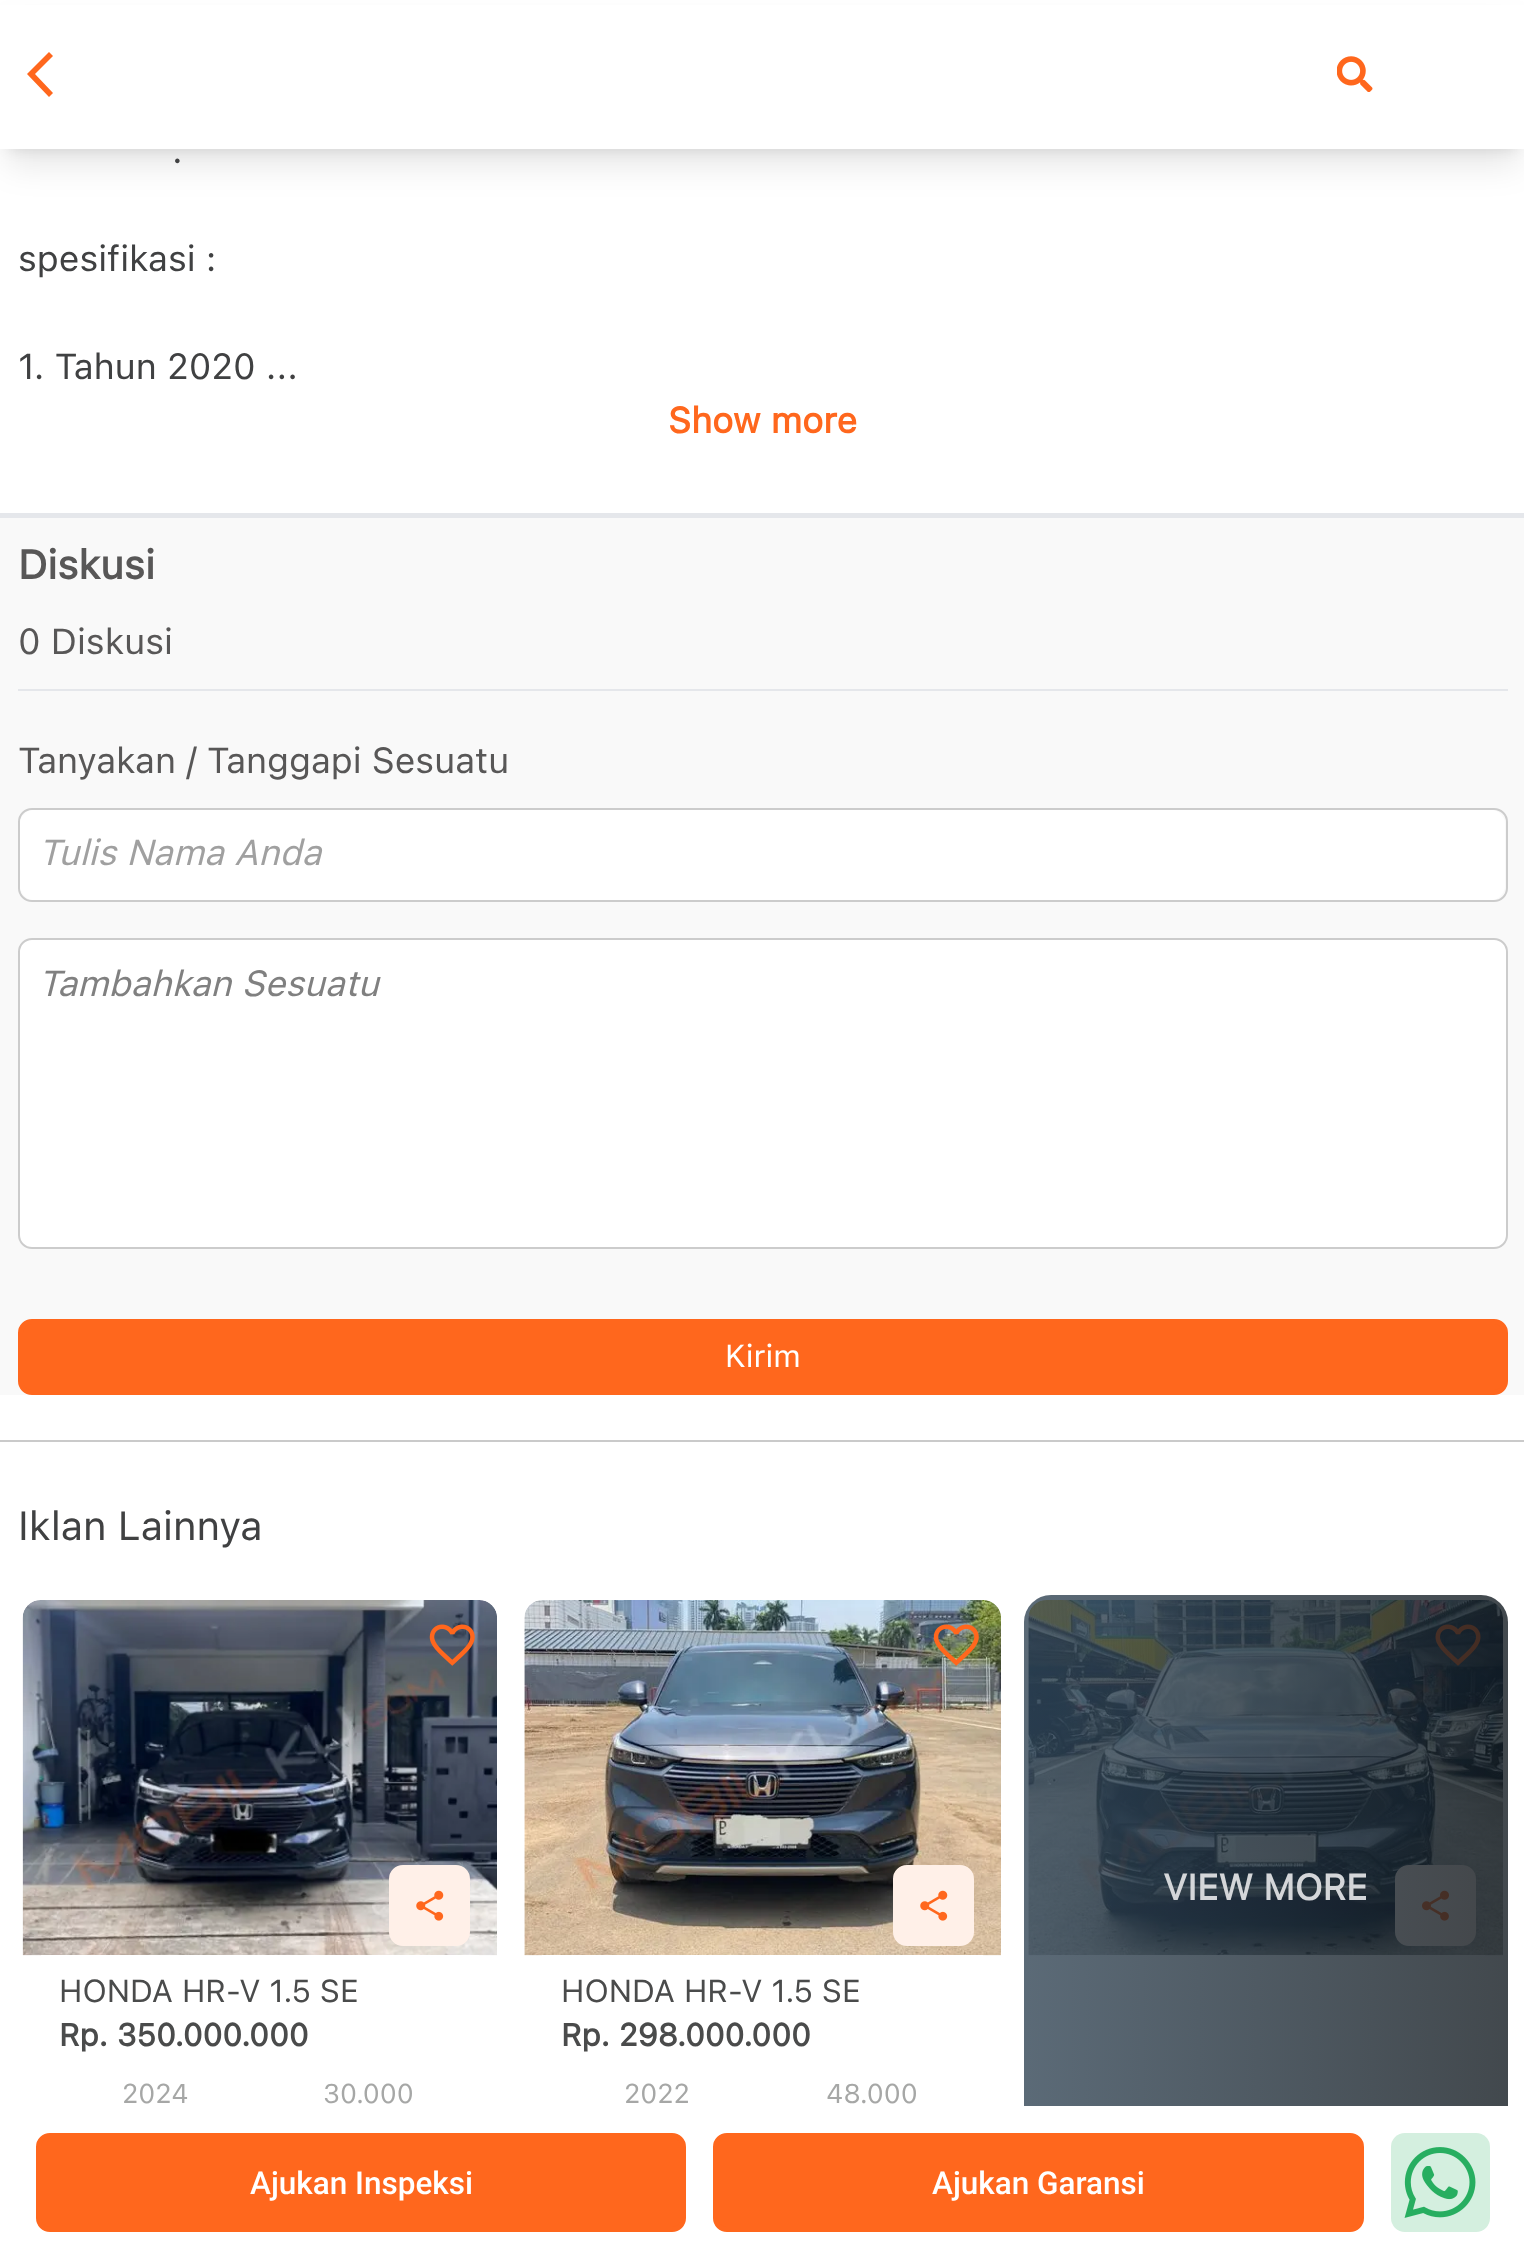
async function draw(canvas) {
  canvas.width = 1524
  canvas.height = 2259
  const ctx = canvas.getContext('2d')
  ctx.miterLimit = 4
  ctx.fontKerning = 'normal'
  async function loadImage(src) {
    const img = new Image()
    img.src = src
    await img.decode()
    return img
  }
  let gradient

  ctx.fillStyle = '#fff'
  ctx.fillRect(0, 0, 1524, 2259)
  ctx.fillStyle = '#0000001a'
  ctx.filter = 'blur(7px)'
  ctx.beginPath()
  ctx.rect(9, 18, 1508, 131)
  ctx.fill()
  ctx.filter = 'none'
  ctx.filter = 'blur(17px)'
  ctx.beginPath()
  ctx.rect(7, 29, 1512, 135)
  ctx.fill()
  ctx.filter = 'none'
  ctx.fillStyle = '#fff'
  ctx.fillRect(0, 5, 1524, 144)
  ctx.fillStyle = '#ff671d'
  ctx.beginPath()
  ctx.moveTo(53, 56)
  ctx.lineTo(49, 52)
  ctx.lineTo(27, 74)
  ctx.lineTo(49, 97)
  ctx.lineTo(53, 93)
  ctx.lineTo(35, 74)
  ctx.closePath()
  ctx.fill()
  ctx.drawImage(await loadImage('image0.png'), 1337, 56, 36, 36)
  ctx.font = '36px SF'
  ctx.fillStyle = '#404142'
  ctx.fillText('.', 172, 163)
  ctx.fillText('spesifikasi :', 18, 271)
  ctx.fillText('1. Tahun 2020 ...', 18, 379)
  ctx.font = 'bold 36px SF'
  ctx.fillStyle = '#ff671d'
  ctx.fillText('Show more', 668, 433)
  ctx.fillStyle = '#f9f9f9'
  ctx.fillRect(0, 518, 1524, 877)
  ctx.fillStyle = '#e5e7eb'
  ctx.fillRect(0, 513, 1524, 5)
  ctx.font = 'bold 40.5px "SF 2"'
  ctx.fillStyle = '#585757'
  ctx.fillText('Diskusi', 18, 579)
  ctx.font = '36px SF'
  ctx.fillText('0 Diskusi', 18, 654)
  ctx.fillStyle = '#e5e7eb'
  ctx.fillRect(18, 689, 1490, 2)
  ctx.fillStyle = '#585757'
  ctx.fillText('Tanyakan / Tanggapi Sesuatu', 18, 773)
  ctx.beginPath()
  ctx.roundRect(19, 809, 1488, 92, 13)
  ctx.strokeStyle = '#ccc'
  ctx.lineWidth = 2
  ctx.stroke()
  ctx.fillStyle = '#fff'
  ctx.beginPath()
  ctx.roundRect(20, 810, 1485, 90, 14)
  ctx.fill()
  ctx.font = 'italic 36px SF'
  ctx.fillStyle = '#a0a0a0'
  ctx.fillText('Tulis Nama Anda', 38, 865)
  ctx.fillStyle = '#fff'
  ctx.beginPath()
  ctx.roundRect(19, 939, 1488, 309, 13)
  ctx.fill()
  ctx.stroke()
  ctx.fillStyle = '#808080'
  ctx.fillText('Tambahkan Sesuatu', 38, 996)
  ctx.fillStyle = '#ff671d'
  ctx.beginPath()
  ctx.roundRect(20.5, 1321.5, 1485, 71, 11.5)
  ctx.fill()
  ctx.strokeStyle = '#ff671d'
  ctx.lineWidth = 5
  ctx.stroke()
  ctx.font = '31.5px SF'
  ctx.fillStyle = '#fff'
  ctx.fillText('Kirim', 725, 1367)
  ctx.fillStyle = '#cacaca'
  ctx.fillRect(0, 1440, 1524, 2)
  ctx.font = '40.5px "SF 2"'
  ctx.fillStyle = '#404142'
  ctx.fillText('Iklan Lainnya', 18, 1540)
  ctx.drawImage(await loadImage('image1.png'), 1028, 1600, 475, 356)
  ctx.drawImage(await loadImage('image2.png'), 1435, 1624, 46, 42)
  ctx.fillStyle = '#fff0e8'
  ctx.beginPath()
  ctx.roundRect(1397.5, 1867.5, 76, 76, 11.5)
  ctx.fill()
  ctx.strokeStyle = '#fff0e8'
  ctx.stroke()
  ctx.drawImage(await loadImage('image3.png'), 1422, 1890, 27, 31)
  ctx.fillStyle = '#fffffff2'
  ctx.fillRect(1046, 1955, 439, 1)
  gradient = ctx.createLinearGradient(1024, 1889, 1508, 1889)
  gradient.addColorStop(0, '#324555cc')
  gradient.addColorStop(1, '#131b21cc')
  ctx.fillStyle = gradient
  ctx.beginPath()
  ctx.roundRect(1024, 1595, 484, 588, 27)
  ctx.fill()
  ctx.font = 'bold 36px SF'
  ctx.fillStyle = '#d4d6d9'
  ctx.fillText('VIEW MORE', 1163, 1900)
  ctx.drawImage(await loadImage('image4.png'), 22, 1600, 475, 356)
  ctx.drawImage(await loadImage('image5.png'), 429, 1624, 46, 42)
  ctx.fillStyle = '#fff0e8'
  ctx.beginPath()
  ctx.roundRect(391.5, 1867.5, 76, 76, 11.5)
  ctx.fill()
  ctx.stroke()
  ctx.drawImage(await loadImage('image6.png'), 416, 1890, 28, 31)
  ctx.fillStyle = '#fffffff2'
  ctx.fillRect(41, 1955, 438, 1)
  ctx.font = '31.5px SF'
  ctx.fillStyle = '#4a4b4b'
  ctx.fillText('HONDA HR-V 1.5 SE', 59, 2002)
  ctx.font = 'bold 31.5px SF'
  ctx.fillText('Rp. 350.000.000', 59, 2046)
  ctx.font = '27px SF'
  ctx.fillStyle = '#a6a7a6'
  ctx.fillText('2024', 122, 2103)
  ctx.fillText('30.000', 323, 2103)
  ctx.drawImage(await loadImage('image7.png'), 524, 1600, 477, 356)
  ctx.drawImage(await loadImage('image8.png'), 933, 1624, 46, 42)
  ctx.fillStyle = '#fff0e8'
  ctx.beginPath()
  ctx.roundRect(895.5, 1867.5, 76, 76, 11.5)
  ctx.fill()
  ctx.stroke()
  ctx.drawImage(await loadImage('image6.png'), 920, 1890, 28, 31)
  ctx.fillStyle = '#fffffff2'
  ctx.fillRect(542, 1955, 441, 1)
  ctx.font = '31.5px SF'
  ctx.fillStyle = '#4a4b4b'
  ctx.fillText('HONDA HR-V 1.5 SE', 561, 2002)
  ctx.font = 'bold 31.5px SF'
  ctx.fillText('Rp. 298.000.000', 561, 2046)
  ctx.font = '27px SF'
  ctx.fillStyle = '#a6a7a6'
  ctx.fillText('2022', 624, 2103)
  ctx.fillText('48.000', 826, 2103)
  ctx.fillStyle = '#fff'
  ctx.fillRect(1024, 2106, 484, 77)
  ctx.fillStyle = '#ff671d'
  ctx.beginPath()
  ctx.roundRect(38.5, 2135.5, 645, 94, 11.5)
  ctx.fill()
  ctx.strokeStyle = '#ff671d'
  ctx.stroke()
  ctx.font = '500 31.5px Roboto'
  ctx.fillStyle = '#fff'
  ctx.fillText('Ajukan Inspeksi', 250, 2194)
  ctx.fillStyle = '#ff671d'
  ctx.beginPath()
  ctx.roundRect(715.5, 2135.5, 646, 94, 11.5)
  ctx.fill()
  ctx.stroke()
  ctx.fillStyle = '#fff'
  ctx.fillText('Ajukan Garansi', 932, 2194)
  ctx.fillStyle = '#d4efdf'
  ctx.beginPath()
  ctx.roundRect(1391, 2133, 99, 99, 14)
  ctx.fill()
  ctx.drawImage(await loadImage('image9.png'), 1404, 2147, 72, 71)
}

draw(document.querySelector('canvas'))
